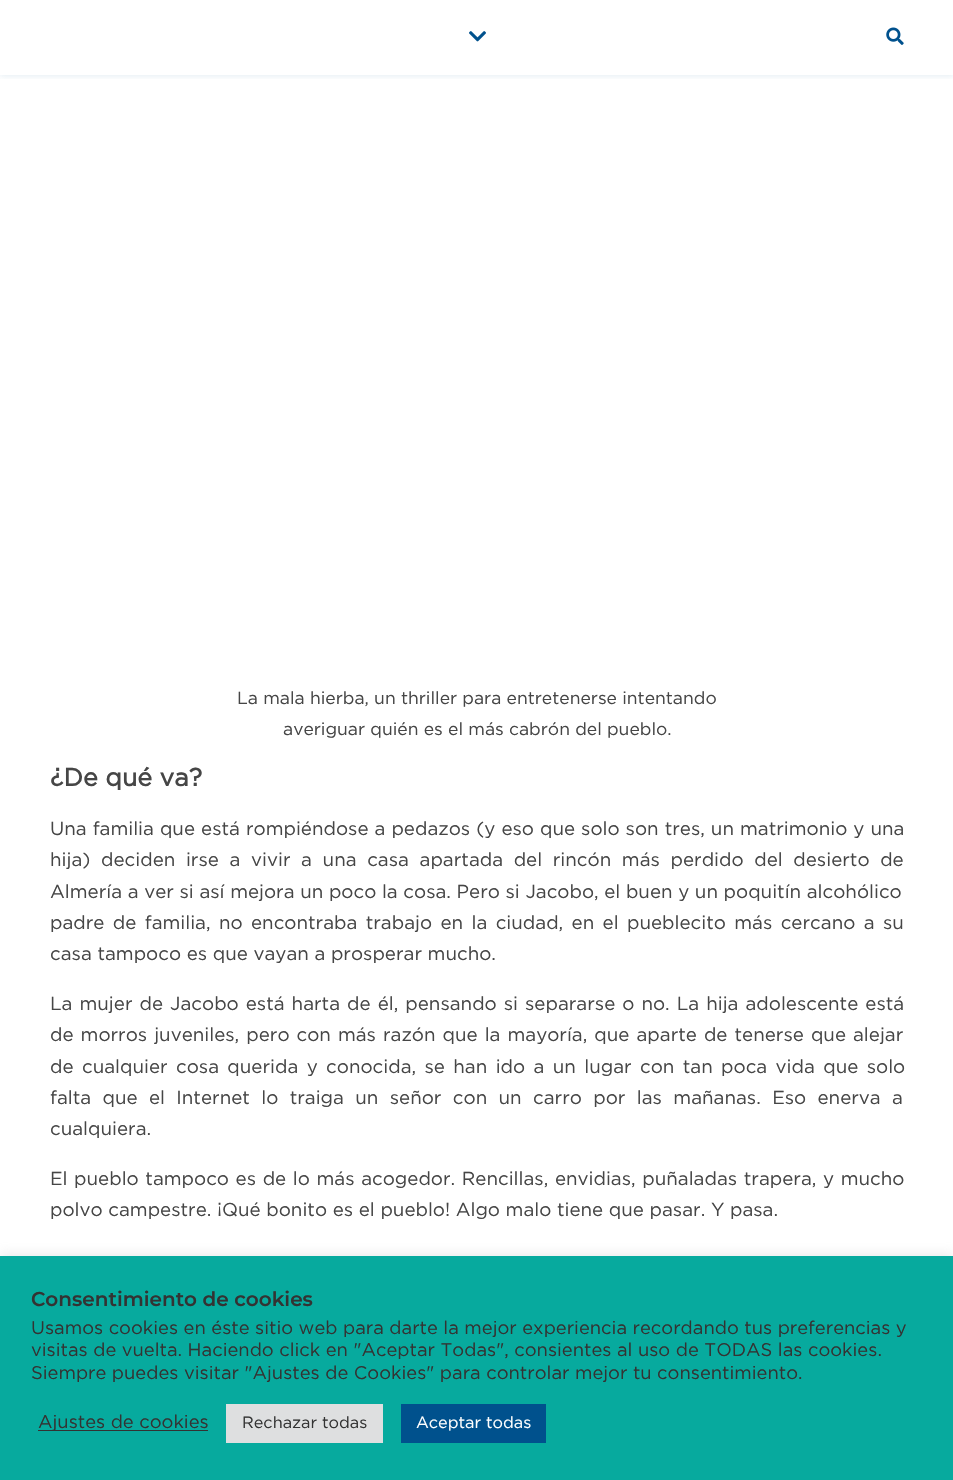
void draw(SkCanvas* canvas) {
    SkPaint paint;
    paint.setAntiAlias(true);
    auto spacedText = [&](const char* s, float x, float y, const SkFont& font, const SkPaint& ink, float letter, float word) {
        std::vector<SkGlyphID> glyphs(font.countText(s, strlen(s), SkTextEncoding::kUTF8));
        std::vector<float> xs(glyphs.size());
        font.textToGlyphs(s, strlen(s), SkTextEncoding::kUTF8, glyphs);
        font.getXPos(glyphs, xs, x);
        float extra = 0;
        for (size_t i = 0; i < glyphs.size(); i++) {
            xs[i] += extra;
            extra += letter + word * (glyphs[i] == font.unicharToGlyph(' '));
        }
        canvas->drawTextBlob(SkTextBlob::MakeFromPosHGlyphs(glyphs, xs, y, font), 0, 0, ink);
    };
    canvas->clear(0xFFFFFFFF);
    canvas->save();
    canvas->clipRect(SkRect::MakeXYWH(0, 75, 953, 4));
    paint.setColor(0x1A00518D);
    paint.setMaskFilter(SkMaskFilter::MakeBlur(kNormal_SkBlurStyle, 3));
    canvas->drawRect(SkRect::MakeXYWH(0, 1, 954, 75), paint);
    paint.setMaskFilter(nullptr);
    canvas->restore();
    canvas->drawImageRect(SkImages::DeferredFromEncodedData(SkData::MakeFromFileName("img1.png")), SkRect::MakeXYWH(469, 31, 17, 11), SkSamplingOptions());
    canvas->drawImageRect(SkImages::DeferredFromEncodedData(SkData::MakeFromFileName("img2.png")), SkRect::MakeXYWH(886, 27, 18, 18), SkSamplingOptions());
    SkFont font1(fontMgr->matchFamilyStyle("Gotham", SkFontStyle::Normal()), 17.5f);
    font1.setSubpixel(true);
    paint.setColor(0xFF464646);
    canvas->drawString("La mala hierba, un thriller para entretenerse intentando", 237, 704, font1, paint);
    canvas->drawString("averiguar quién es el más cabrón del pueblo.", 283, 735, font1, paint);
    SkFont font2(fontMgr->matchFamilyStyle("Gotham", SkFontStyle::Bold()), 25);
    font2.setSubpixel(true);
    canvas->drawString("¿De qué va?", 50, 786, font2, paint);
    SkFont font3(fontMgr->matchFamilyStyle("Gotham", SkFontStyle::Normal()), 18.75f);
    font3.setSubpixel(true);
    spacedText("Una familia que está rompiéndose a pedazos (y eso que solo son tres, un matrimonio y una", 50, 835, font3, paint, 0, 0.4f);
    spacedText("hija) deciden irse a vivir a una casa apartada del rincón más perdido del desierto de", 50, 866, font3, paint, 0, 5);
    canvas->drawString("Almería a ver si así mejora un poco la cosa. Pero si Jacobo, el buen y un poquitín alcohólico", 50, 898, font3, paint);
    spacedText("padre de familia, no encontraba trabajo en la ciudad, en el pueblecito más cercano a su", 50, 929, font3, paint, 0, 2.75f);
    canvas->drawString("casa tampoco es que vayan a prosperar mucho.", 50, 960, font3, paint);
    spacedText("La mujer de Jacobo está harta de él, pensando si separarse o no. La hija adolescente está", 50, 1010, font3, paint, 0, 1.4f);
    spacedText("de morros juveniles, pero con más razón que la mayoría, que aparte de tenerse que alejar", 50, 1041, font3, paint, 0, 1.4f);
    spacedText("de cualquier cosa querida y conocida, se han ido a un lugar con tan poca vida que solo", 50, 1073, font3, paint, 0, 2.75f);
    spacedText("falta que el Internet lo traiga un señor con un carro por las mañanas. Eso enerva a", 50, 1104, font3, paint, 0, 5.75f);
    canvas->drawString("cualquiera.", 50, 1135, font3, paint);
    spacedText("El pueblo tampoco es de lo más acogedor. Rencillas, envidias, puñaladas trapera, y mucho", 50, 1185, font3, paint, 0, 1);
    canvas->drawString("polvo campestre. ¡Qué bonito es el pueblo! Algo malo tiene que pasar. Y pasa.", 50, 1216, font3, paint);
    paint.setColor(0x4DACABAB);
    paint.setMaskFilter(SkMaskFilter::MakeBlur(kNormal_SkBlurStyle, 6));
    canvas->drawRect(SkRect::MakeXYWH(0, 1255, 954, 224), paint);
    paint.setMaskFilter(nullptr);
    paint.setColor(0xFF07AA9E);
    canvas->drawRect(SkRect::MakeXYWH(0, 1256, 953, 224), paint);
    SkFont font4(fontMgr->matchFamilyStyle("Montserrat", SkFontStyle(600, SkFontStyle::kNormal_Width, SkFontStyle::kUpright_Slant)), 20);
    font4.setSubpixel(true);
    paint.setColor(0xFF333333);
    canvas->drawString("Consentimiento de cookies", 31, 1306, font4, paint);
    SkFont font5(fontMgr->matchFamilyStyle("Gotham", SkFontStyle::Normal()), 18.35f);
    font5.setSubpixel(true);
    canvas->drawString("Usamos cookies en éste sitio web para darte la mejor experiencia recordando tus preferencias y", 31, 1334, font5, paint);
    canvas->drawString("visitas de vuelta. Haciendo click en \"Aceptar Todas\", consientes al uso de TODAS las cookies.", 31, 1356, font5, paint);
    canvas->drawString("Siempre puedes visitar \"Ajustes de Cookies\" para controlar mejor tu consentimiento.", 31, 1379, font5, paint);
    canvas->drawRect(SkRect::MakeXYWH(38, 1430, 170, 1), paint);
    canvas->drawString("Ajustes de cookies", 38, 1428, font5, paint);
    paint.setColor(0xFFDEDFE0);
    canvas->drawRect(SkRect::MakeXYWH(226, 1404, 157, 39), paint);
    SkFont font6(fontMgr->matchFamilyStyle("Gotham", SkFontStyle::Normal()), 16.25f);
    font6.setSubpixel(true);
    paint.setColor(0xFF333333);
    canvas->drawString("Rechazar todas", 242, 1428, font6, paint);
    paint.setColor(0xFF00518D);
    canvas->drawRect(SkRect::MakeXYWH(401, 1404, 145, 39), paint);
    paint.setColor(0xFFFFFFFF);
    canvas->drawString("Aceptar todas", 416, 1428, font6, paint);
}
